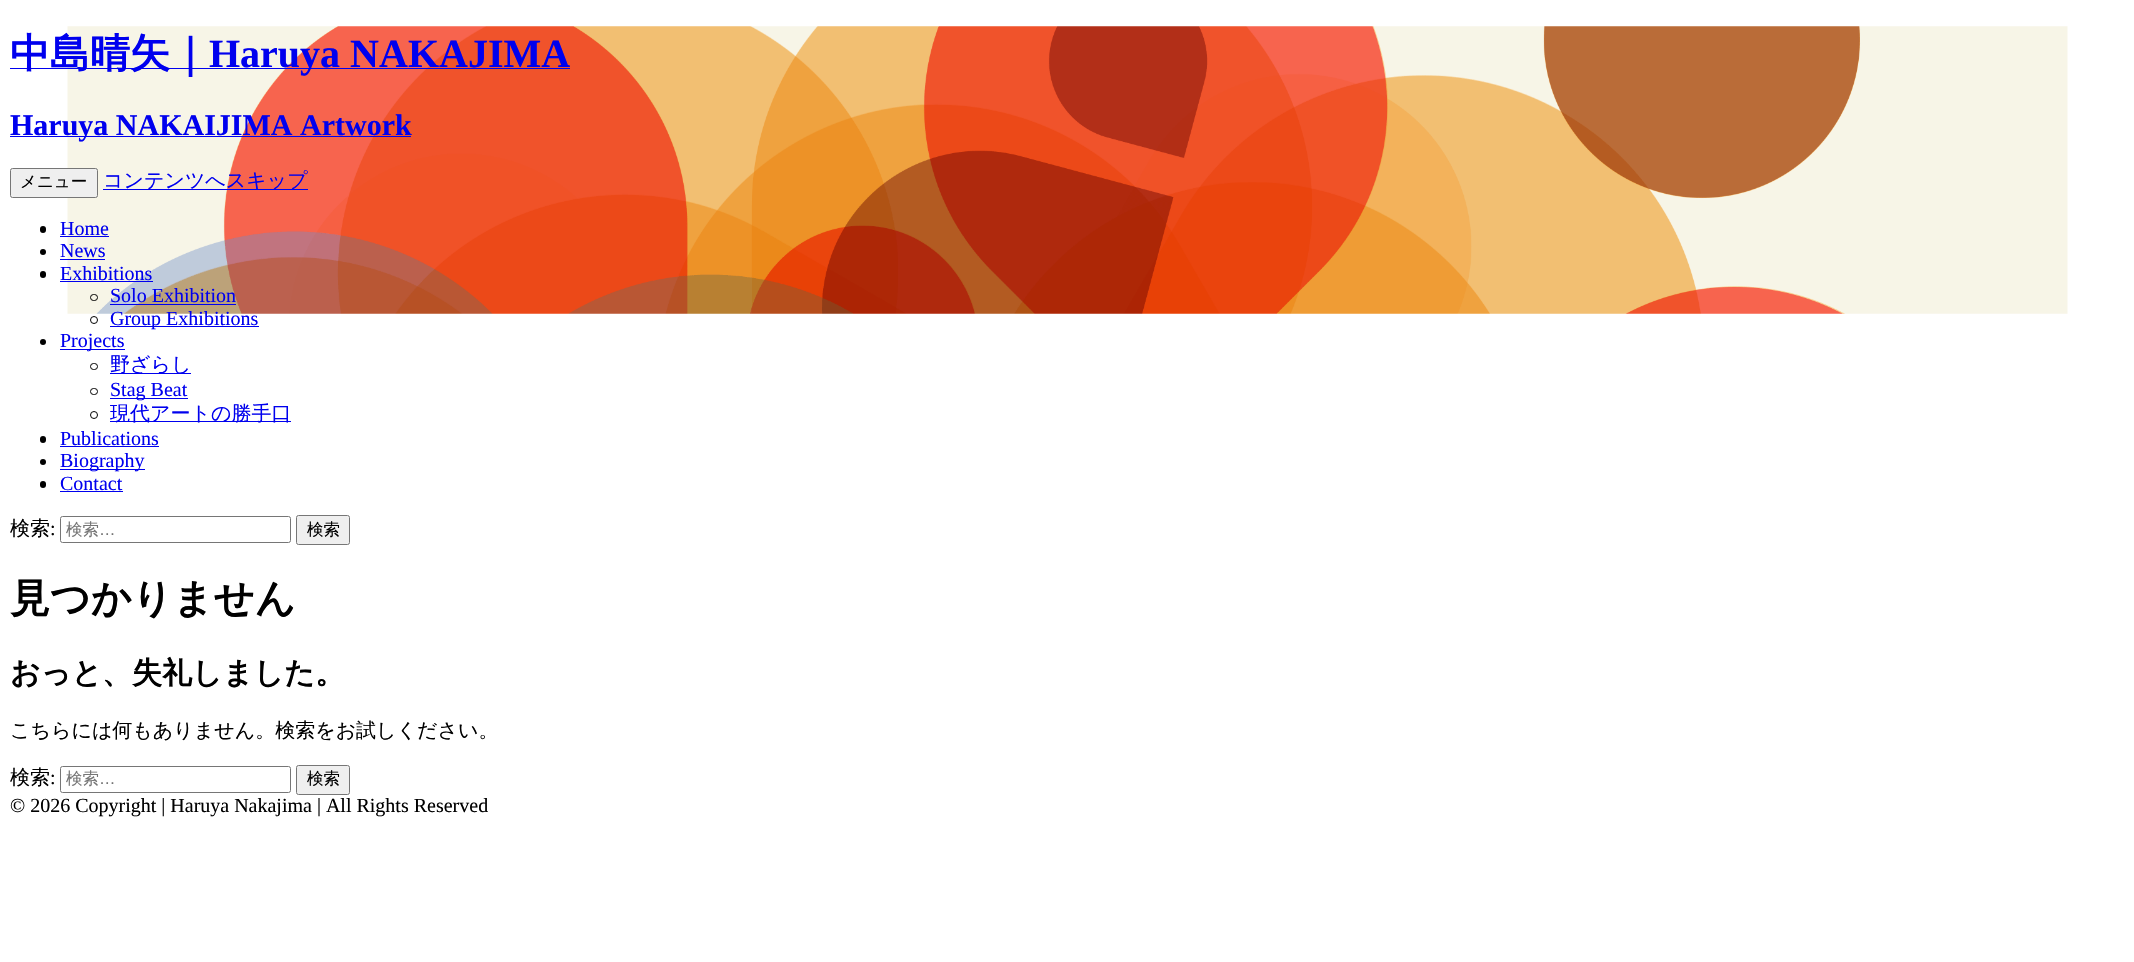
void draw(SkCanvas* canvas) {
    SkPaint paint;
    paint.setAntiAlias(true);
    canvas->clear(0xFFFFFFFF);
    canvas->drawImageRect(SkImages::DeferredFromEncodedData(SkData::MakeFromFileName("img1.png")), SkRect::MakeXYWH(67, 26, 2001, 288), SkSamplingOptions());
    paint.setColor(0xFF0000EE);
    canvas->drawRect(SkRect::MakeXYWH(10, 68, 560, 1), paint);
    SkFont font1(fontMgr->matchFamilyStyle("WenQuanYi Zen Hei", SkFontStyle::Bold()), 40);
    font1.setSubpixel(true);
    canvas->drawString("中島晴矢｜", 10, 67, font1, paint);
    SkFont font2(fontMgr->matchFamilyStyle("Liberation Serif", SkFontStyle::Bold()), 40);
    font2.setSubpixel(true);
    canvas->drawString("Haruya NAKAJIMA", 209, 67, font2, paint);
    canvas->drawRect(SkRect::MakeXYWH(10, 136, 401, 1), paint);
    SkFont font3(fontMgr->matchFamilyStyle("Liberation Serif", SkFontStyle::Bold()), 30);
    font3.setSubpixel(true);
    canvas->drawString("Haruya NAKAIJIMA Artwork", 10, 135, font3, paint);
    paint.setColor(0xFFEFEFEF);
    canvas->drawRoundRect(SkRect::MakeXYWH(10.5f, 168.5f, 87, 29), 2, 2, paint);
    paint.setStyle(SkPaint::kStroke_Style);
    paint.setStrokeWidth(1);
    paint.setColor(0xFF767676);
    canvas->drawRoundRect(SkRect::MakeXYWH(10.5f, 168.5f, 87, 29), 2, 2, paint);
    SkFont font4(fontMgr->matchFamilyStyle("WenQuanYi Zen Hei", SkFontStyle(500, SkFontStyle::kNormal_Width, SkFontStyle::kUpright_Slant)), 16.5f);
    font4.setSubpixel(true);
    paint.setStyle(SkPaint::kFill_Style);
    paint.setColor(0xFF000000);
    canvas->drawString("メニュー", 20, 187, font4, paint);
    paint.setColor(0xFF0000EE);
    canvas->drawRect(SkRect::MakeXYWH(103, 189, 205, 1), paint);
    SkFont font5(fontMgr->matchFamilyStyle("WenQuanYi Zen Hei", SkFontStyle(500, SkFontStyle::kNormal_Width, SkFontStyle::kUpright_Slant)), 20);
    font5.setSubpixel(true);
    canvas->drawString("コンテンツへスキップ", 103, 187, font5, paint);
    paint.setColor(0xFF000000);
    canvas->drawRoundRect(SkRect::MakeXYWH(40, 226, 6, 7), 3, 3, paint);
    SkFont font6(fontMgr->matchFamilyStyle("Liberation Serif", SkFontStyle::Normal()), 20);
    font6.setSubpixel(true);
    paint.setColor(0xFF0000EE);
    canvas->drawString("Home", 60, 235, font6, paint);
    canvas->drawRect(SkRect::MakeXYWH(60, 236, 49, 1), paint);
    paint.setColor(0xFF000000);
    canvas->drawCircle(43, 252, 3, paint);
    paint.setColor(0xFF0000EE);
    canvas->drawString("News", 60, 257, font6, paint);
    canvas->drawRect(SkRect::MakeXYWH(60, 259, 45, 1), paint);
    paint.setColor(0xFF000000);
    canvas->drawRoundRect(SkRect::MakeXYWH(40, 271, 6, 7), 3, 3, paint);
    paint.setColor(0xFF0000EE);
    canvas->drawString("Exhibitions", 60, 280, font6, paint);
    canvas->drawRect(SkRect::MakeXYWH(60, 281, 93, 1), paint);
    paint.setStyle(SkPaint::kStroke_Style);
    paint.setColor(0xFF000000);
    canvas->drawRoundRect(SkRect::MakeXYWH(90.5f, 294.5f, 7, 6), 3, 3, paint);
    paint.setStyle(SkPaint::kFill_Style);
    paint.setColor(0xFF0000EE);
    canvas->drawString("Solo Exhibition", 110, 302, font6, paint);
    canvas->drawRect(SkRect::MakeXYWH(110, 304, 126, 1), paint);
    paint.setStyle(SkPaint::kStroke_Style);
    paint.setColor(0xFF000000);
    canvas->drawCircle(94, 320, 3.5f, paint);
    paint.setStyle(SkPaint::kFill_Style);
    paint.setColor(0xFF0000EE);
    canvas->drawRect(SkRect::MakeXYWH(110, 326, 149, 1), paint);
    canvas->drawString("Group Exhibitions", 110, 325, font6, paint);
    paint.setColor(0xFF000000);
    canvas->drawCircle(43, 342, 3, paint);
    paint.setColor(0xFF0000EE);
    canvas->drawRect(SkRect::MakeXYWH(60, 349, 65, 1), paint);
    canvas->drawString("Projects", 60, 347, font6, paint);
    paint.setStyle(SkPaint::kStroke_Style);
    paint.setColor(0xFF000000);
    canvas->drawRoundRect(SkRect::MakeXYWH(90.5f, 363.5f, 7, 6), 3, 3, paint);
    paint.setStyle(SkPaint::kFill_Style);
    paint.setColor(0xFF0000EE);
    canvas->drawRect(SkRect::MakeXYWH(110, 373, 81, 1), paint);
    canvas->drawString("野ざらし", 110, 371, font5, paint);
    paint.setStyle(SkPaint::kStroke_Style);
    paint.setColor(0xFF000000);
    canvas->drawRoundRect(SkRect::MakeXYWH(90.5f, 388.5f, 7, 6), 3, 3, paint);
    paint.setStyle(SkPaint::kFill_Style);
    paint.setColor(0xFF0000EE);
    canvas->drawRect(SkRect::MakeXYWH(110, 398, 78, 1), paint);
    canvas->drawString("Stag Beat", 110, 396, font6, paint);
    paint.setStyle(SkPaint::kStroke_Style);
    paint.setColor(0xFF000000);
    canvas->drawCircle(94, 415, 3.5f, paint);
    paint.setStyle(SkPaint::kFill_Style);
    paint.setColor(0xFF0000EE);
    canvas->drawRect(SkRect::MakeXYWH(110, 421, 181, 1), paint);
    canvas->drawString("現代アートの勝手口", 110, 420, font5, paint);
    paint.setColor(0xFF000000);
    canvas->drawRoundRect(SkRect::MakeXYWH(40, 436, 6, 7), 3, 3, paint);
    paint.setColor(0xFF0000EE);
    canvas->drawString("Publications", 60, 445, font6, paint);
    canvas->drawRect(SkRect::MakeXYWH(60, 446, 99, 1), paint);
    paint.setColor(0xFF000000);
    canvas->drawCircle(43, 462, 3, paint);
    paint.setColor(0xFF0000EE);
    canvas->drawRect(SkRect::MakeXYWH(60, 469, 85, 1), paint);
    canvas->drawString("Biography", 60, 467, font6, paint);
    paint.setColor(0xFF000000);
    canvas->drawRoundRect(SkRect::MakeXYWH(40, 481, 6, 7), 3, 3, paint);
    paint.setColor(0xFF0000EE);
    canvas->drawString("Contact", 60, 490, font6, paint);
    canvas->drawRect(SkRect::MakeXYWH(60, 491, 63, 1), paint);
    paint.setColor(0xFF000000);
    canvas->drawString("検索", 10, 535, font5, paint);
    canvas->drawString(":", 50, 535, font6, paint);
    paint.setStyle(SkPaint::kStroke_Style);
    paint.setColor(0xFF767676);
    canvas->drawRoundRect(SkRect::MakeXYWH(60.5f, 516.5f, 230, 26), 2, 2, paint);
    paint.setStyle(SkPaint::kFill_Style);
    paint.setColor(0xFF757575);
    canvas->drawString("検索", 66, 535, font4, paint);
    SkFont font7(fontMgr->matchFamilyStyle("Liberation Sans", SkFontStyle::Normal()), 16.5f);
    font7.setSubpixel(true);
    canvas->drawString("…", 99, 535, font7, paint);
    paint.setColor(0xFFEFEFEF);
    canvas->drawRoundRect(SkRect::MakeXYWH(296.5f, 515.5f, 53, 29), 2, 2, paint);
    paint.setStyle(SkPaint::kStroke_Style);
    paint.setColor(0xFF767676);
    canvas->drawRoundRect(SkRect::MakeXYWH(296.5f, 515.5f, 53, 29), 2, 2, paint);
    paint.setStyle(SkPaint::kFill_Style);
    paint.setColor(0xFF000000);
    canvas->drawString("検索", 307, 535, font4, paint);
    canvas->drawString("見つかりません", 10, 612, font1, paint);
    SkFont font8(fontMgr->matchFamilyStyle("WenQuanYi Zen Hei", SkFontStyle::Bold()), 30);
    font8.setSubpixel(true);
    canvas->drawString("おっと、失礼しました。", 10, 683, font8, paint);
    canvas->drawString("こちらには何もありません。検索をお試しください。", 10, 737, font5, paint);
    canvas->drawString("検索", 10, 784, font5, paint);
    canvas->drawString(":", 50, 784, font6, paint);
    paint.setStyle(SkPaint::kStroke_Style);
    paint.setColor(0xFF767676);
    canvas->drawRoundRect(SkRect::MakeXYWH(60.5f, 766.5f, 230, 26), 2, 2, paint);
    paint.setStyle(SkPaint::kFill_Style);
    paint.setColor(0xFF757575);
    canvas->drawString("検索", 66, 784, font4, paint);
    canvas->drawString("…", 99, 784, font7, paint);
    paint.setColor(0xFFEFEFEF);
    canvas->drawRoundRect(SkRect::MakeXYWH(296.5f, 765.5f, 53, 29), 2, 2, paint);
    paint.setStyle(SkPaint::kStroke_Style);
    paint.setColor(0xFF767676);
    canvas->drawRoundRect(SkRect::MakeXYWH(296.5f, 765.5f, 53, 29), 2, 2, paint);
    paint.setStyle(SkPaint::kFill_Style);
    paint.setColor(0xFF000000);
    canvas->drawString("検索", 307, 784, font4, paint);
    canvas->drawString("© 2026 Copyright | Haruya Nakajima | All Rights Reserved", 10, 812, font6, paint);
}
